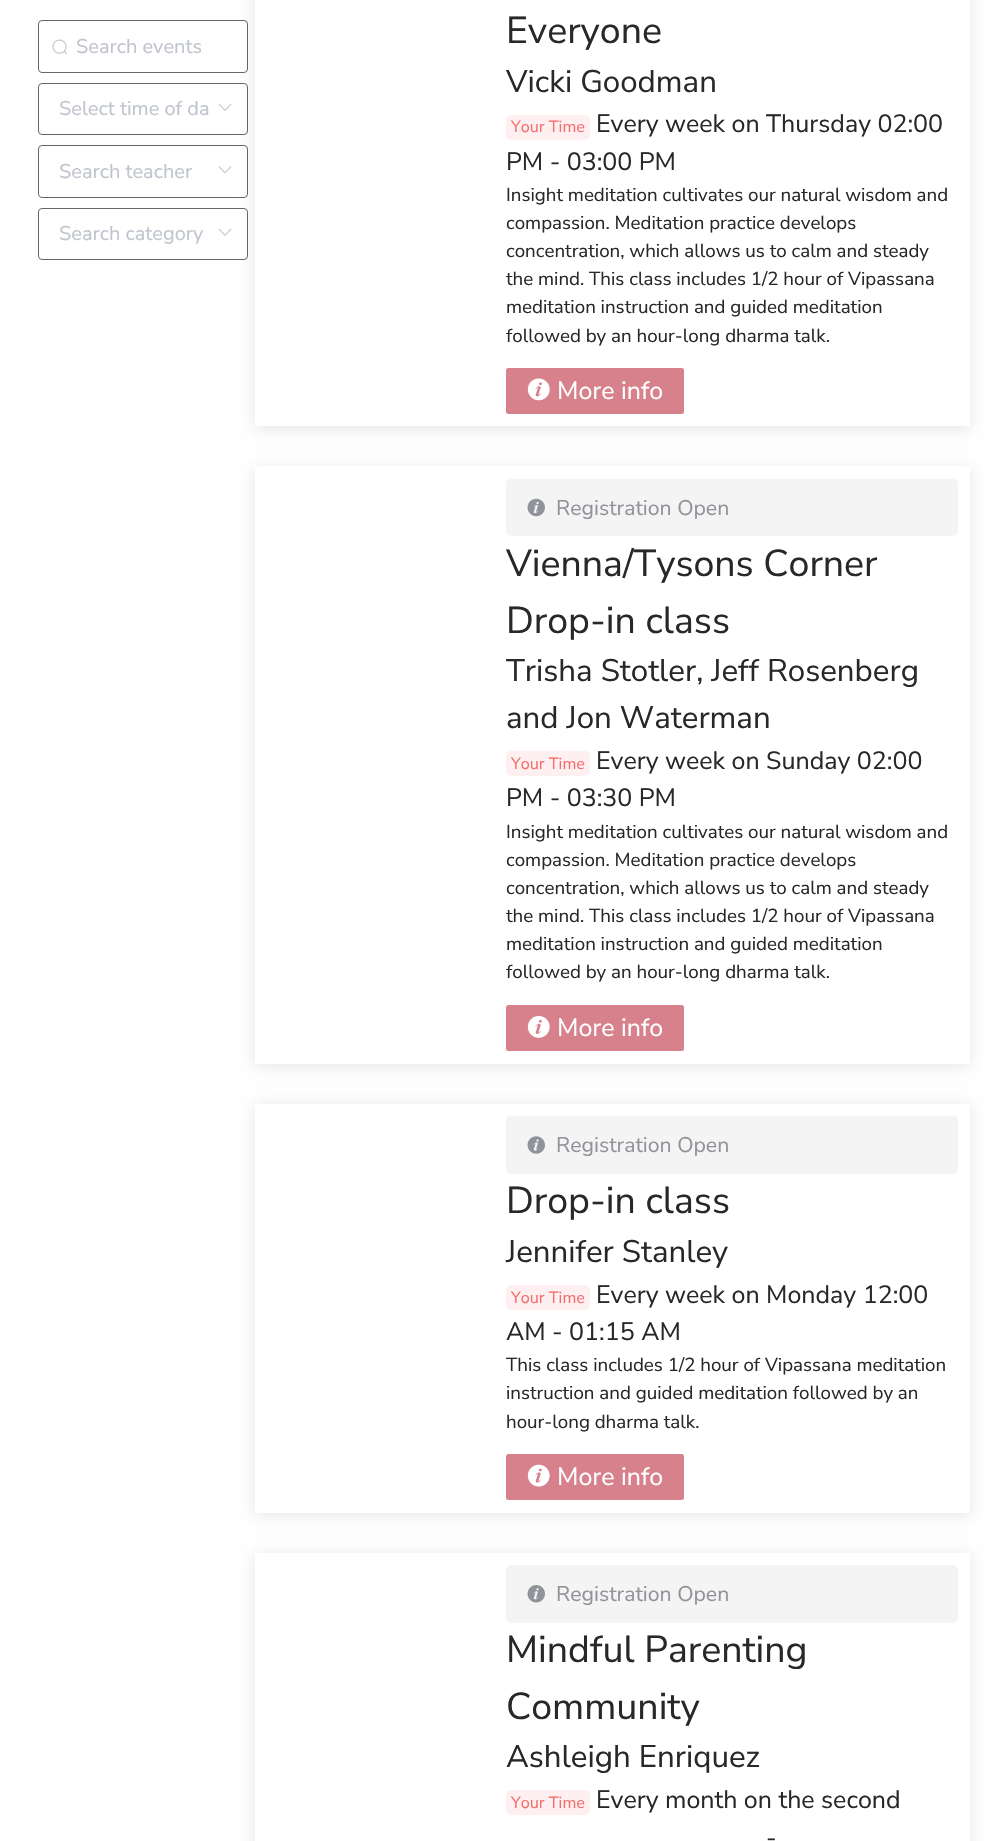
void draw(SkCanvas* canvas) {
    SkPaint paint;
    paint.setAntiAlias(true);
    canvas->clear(0xFFFFFFFF);
    paint.setStyle(SkPaint::kStroke_Style);
    paint.setStrokeWidth(1);
    paint.setColor(0xFF666666);
    canvas->drawRoundRect(SkRect::MakeXYWH(38.5f, 20.5f, 209, 52), 3.5f, 3.5f, paint);
    canvas->drawImageRect(SkImages::DeferredFromEncodedData(SkData::MakeFromFileName("img1.png")), SkRect::MakeXYWH(52, 39, 15, 16), SkSamplingOptions());
    SkFont font1(fontMgr->matchFamilyStyle("Nunito Sans", SkFontStyle::Normal()), 20);
    font1.setSubpixel(true);
    paint.setStyle(SkPaint::kFill_Style);
    paint.setColor(0xFFC0C4CC);
    canvas->drawString("Search events", 76, 53, font1, paint);
    paint.setStyle(SkPaint::kStroke_Style);
    paint.setColor(0xFF666666);
    canvas->drawRoundRect(SkRect::MakeXYWH(38.5f, 83.5f, 209, 51), 3.5f, 3.5f, paint);
    paint.setStyle(SkPaint::kFill_Style);
    paint.setColor(0xFFC0C4CC);
    canvas->drawString("Select time of da", 59, 115, font1, paint);
    canvas->drawImageRect(SkImages::DeferredFromEncodedData(SkData::MakeFromFileName("img2.png")), SkRect::MakeXYWH(218, 103, 14, 8), SkSamplingOptions());
    paint.setStyle(SkPaint::kStroke_Style);
    paint.setColor(0xFF666666);
    canvas->drawRoundRect(SkRect::MakeXYWH(38.5f, 145.5f, 209, 52), 3.5f, 3.5f, paint);
    paint.setStyle(SkPaint::kFill_Style);
    paint.setColor(0xFFC0C4CC);
    canvas->drawString("Search teacher", 59, 178, font1, paint);
    canvas->drawImageRect(SkImages::DeferredFromEncodedData(SkData::MakeFromFileName("img3.png")), SkRect::MakeXYWH(218, 166, 14, 8), SkSamplingOptions());
    paint.setStyle(SkPaint::kStroke_Style);
    paint.setColor(0xFF666666);
    canvas->drawRoundRect(SkRect::MakeXYWH(38.5f, 208.5f, 209, 51), 3.5f, 3.5f, paint);
    paint.setStyle(SkPaint::kFill_Style);
    paint.setColor(0xFFC0C4CC);
    canvas->drawString("Search category", 59, 240, font1, paint);
    canvas->drawImageRect(SkImages::DeferredFromEncodedData(SkData::MakeFromFileName("img2.png")), SkRect::MakeXYWH(218, 228, 14, 8), SkSamplingOptions());
    canvas->save();
    canvas->clipPath(SkPathBuilder(SkPathFillType::kEvenOdd).moveTo(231, 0).lineTo(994, 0).lineTo(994, 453).lineTo(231, 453).close().moveTo(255, -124).lineTo(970, -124).lineTo(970, 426).lineTo(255, 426).close().detach(), true);
    paint.setColor(0x1A000000);
    paint.setMaskFilter(SkMaskFilter::MakeBlur(kNormal_SkBlurStyle, 7.5f));
    canvas->drawRect(SkRect::MakeXYWH(255, -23, 715, 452), paint);
    paint.setMaskFilter(nullptr);
    canvas->restore();
    SkFont font2(fontMgr->matchFamilyStyle("Nunito Sans", SkFontStyle::Normal()), 37.5f);
    font2.setSubpixel(true);
    paint.setColor(0xFF282828);
    canvas->drawString("Everyone", 506, 43, font2, paint);
    SkFont font3(fontMgr->matchFamilyStyle("Nunito Sans", SkFontStyle::Normal()), 31.25f);
    font3.setSubpixel(true);
    canvas->drawString("Vicki Goodman", 506, 92, font3, paint);
    paint.setColor(0xFFFEF0F0);
    canvas->drawRoundRect(SkRect::MakeXYWH(506, 115, 84, 25), 5, 5, paint);
    SkFont font4(fontMgr->matchFamilyStyle("Nunito Sans", SkFontStyle::Normal()), 16.25f);
    font4.setSubpixel(true);
    paint.setColor(0xFFF56C6C);
    canvas->drawString("Your Time", 511, 132, font4, paint);
    SkFont font5(fontMgr->matchFamilyStyle("Nunito Sans", SkFontStyle::Normal()), 25);
    font5.setSubpixel(true);
    paint.setColor(0xFF282828);
    canvas->drawString("Every week on Thursday 02:00", 596, 132, font5, paint);
    canvas->drawString("PM - 03:00 PM", 506, 170, font5, paint);
    SkFont font6(fontMgr->matchFamilyStyle("Nunito Sans", SkFontStyle::Normal()), 18.75f);
    font6.setSubpixel(true);
    canvas->drawString("Insight meditation cultivates our natural wisdom and", 506, 201, font6, paint);
    canvas->drawString("compassion. Meditation practice develops", 506, 229, font6, paint);
    canvas->drawString("concentration, which allows us to calm and steady", 506, 257, font6, paint);
    canvas->drawString("the mind. This class includes 1/2 hour of Vipassana", 506, 285, font6, paint);
    canvas->drawString("meditation instruction and guided meditation", 506, 313, font6, paint);
    canvas->drawString("followed by an hour-long dharma talk.", 506, 342, font6, paint);
    paint.setColor(0xFFD7818C);
    canvas->drawRoundRect(SkRect::MakeXYWH(506, 368, 178, 46), 2.5f, 2.5f, paint);
    canvas->drawImageRect(SkImages::DeferredFromEncodedData(SkData::MakeFromFileName("img4.png")), SkRect::MakeXYWH(527, 378, 23, 23), SkSamplingOptions());
    paint.setColor(0xFFFFFFFF);
    canvas->drawString("More info", 557, 399, font5, paint);
    canvas->save();
    canvas->clipPath(SkPathBuilder(SkPathFillType::kEvenOdd).moveTo(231, 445).lineTo(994, 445).lineTo(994, 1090).lineTo(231, 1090).close().moveTo(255, 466).lineTo(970, 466).lineTo(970, 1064).lineTo(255, 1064).close().detach(), true);
    paint.setColor(0x1A000000);
    paint.setMaskFilter(SkMaskFilter::MakeBlur(kNormal_SkBlurStyle, 7.5f));
    canvas->drawRect(SkRect::MakeXYWH(255, 469, 715, 597), paint);
    paint.setMaskFilter(nullptr);
    canvas->restore();
    paint.setColor(0xFFF4F4F5);
    canvas->drawRoundRect(SkRect::MakeXYWH(506, 479, 452, 57), 5, 5, paint);
    canvas->drawImageRect(SkImages::DeferredFromEncodedData(SkData::MakeFromFileName("img5.png")), SkRect::MakeXYWH(527, 498, 18, 19), SkSamplingOptions());
    SkFont font7(fontMgr->matchFamilyStyle("Nunito Sans", SkFontStyle::Normal()), 21.25f);
    font7.setSubpixel(true);
    paint.setColor(0xFF909399);
    canvas->drawString("Registration Open", 556, 515, font7, paint);
    paint.setColor(0xFF282828);
    canvas->drawString("Vienna/Tysons Corner", 506, 576, font2, paint);
    canvas->drawString("Drop-in class", 506, 633, font2, paint);
    canvas->drawString("Trisha Stotler, Jeff Rosenberg", 506, 681, font3, paint);
    canvas->drawString("and Jon Waterman", 506, 728, font3, paint);
    paint.setColor(0xFFFEF0F0);
    canvas->drawRoundRect(SkRect::MakeXYWH(506, 751, 84, 25), 5, 5, paint);
    paint.setColor(0xFFF56C6C);
    canvas->drawString("Your Time", 511, 769, font4, paint);
    paint.setColor(0xFF282828);
    canvas->drawString("Every week on Sunday 02:00", 596, 769, font5, paint);
    canvas->drawString("PM - 03:30 PM", 506, 806, font5, paint);
    canvas->drawString("Insight meditation cultivates our natural wisdom and", 506, 838, font6, paint);
    canvas->drawString("compassion. Meditation practice develops", 506, 866, font6, paint);
    canvas->drawString("concentration, which allows us to calm and steady", 506, 894, font6, paint);
    canvas->drawString("the mind. This class includes 1/2 hour of Vipassana", 506, 922, font6, paint);
    canvas->drawString("meditation instruction and guided meditation", 506, 950, font6, paint);
    canvas->drawString("followed by an hour-long dharma talk.", 506, 978, font6, paint);
    paint.setColor(0xFFD7818C);
    canvas->drawRoundRect(SkRect::MakeXYWH(506, 1005, 178, 46), 2.5f, 2.5f, paint);
    canvas->drawImageRect(SkImages::DeferredFromEncodedData(SkData::MakeFromFileName("img6.png")), SkRect::MakeXYWH(527, 1015, 23, 23), SkSamplingOptions());
    paint.setColor(0xFFFFFFFF);
    canvas->drawString("More info", 557, 1036, font5, paint);
    canvas->save();
    canvas->clipPath(SkPathBuilder(SkPathFillType::kEvenOdd).moveTo(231, 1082).lineTo(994, 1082).lineTo(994, 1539).lineTo(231, 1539).close().moveTo(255, 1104).lineTo(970, 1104).lineTo(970, 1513).lineTo(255, 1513).close().detach(), true);
    paint.setColor(0x1A000000);
    paint.setMaskFilter(SkMaskFilter::MakeBlur(kNormal_SkBlurStyle, 7.5f));
    canvas->drawRect(SkRect::MakeXYWH(255, 1106, 715, 409), paint);
    paint.setMaskFilter(nullptr);
    canvas->restore();
    paint.setColor(0xFFF4F4F5);
    canvas->drawRoundRect(SkRect::MakeXYWH(506, 1116, 452, 58), 5, 5, paint);
    canvas->drawImageRect(SkImages::DeferredFromEncodedData(SkData::MakeFromFileName("img7.png")), SkRect::MakeXYWH(527, 1136, 18, 18), SkSamplingOptions());
    paint.setColor(0xFF909399);
    canvas->drawString("Registration Open", 556, 1152, font7, paint);
    paint.setColor(0xFF282828);
    canvas->drawString("Drop-in class", 506, 1213, font2, paint);
    canvas->drawString("Jennifer Stanley", 506, 1262, font3, paint);
    paint.setColor(0xFFFEF0F0);
    canvas->drawRoundRect(SkRect::MakeXYWH(506, 1285, 84, 25), 5, 5, paint);
    paint.setColor(0xFFF56C6C);
    canvas->drawString("Your Time", 511, 1303, font4, paint);
    paint.setColor(0xFF282828);
    canvas->drawString("Every week on Monday 12:00", 596, 1303, font5, paint);
    canvas->drawString("AM - 01:15 AM", 506, 1340, font5, paint);
    canvas->drawString("This class includes 1/2 hour of Vipassana meditation", 506, 1371, font6, paint);
    canvas->drawString("instruction and guided meditation followed by an", 506, 1399, font6, paint);
    canvas->drawString("hour-long dharma talk.", 506, 1428, font6, paint);
    paint.setColor(0xFFD7818C);
    canvas->drawRoundRect(SkRect::MakeXYWH(506, 1454, 178, 46), 2.5f, 2.5f, paint);
    canvas->drawImageRect(SkImages::DeferredFromEncodedData(SkData::MakeFromFileName("img8.png")), SkRect::MakeXYWH(527, 1464, 23, 23), SkSamplingOptions());
    paint.setColor(0xFFFFFFFF);
    canvas->drawString("More info", 557, 1485, font5, paint);
    canvas->save();
    canvas->clipPath(SkPathBuilder(SkPathFillType::kEvenOdd).moveTo(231, 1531).lineTo(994, 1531).lineTo(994, 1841).lineTo(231, 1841).close().moveTo(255, 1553).lineTo(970, 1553).lineTo(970, 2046).lineTo(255, 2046).close().detach(), true);
    paint.setColor(0x1A000000);
    paint.setMaskFilter(SkMaskFilter::MakeBlur(kNormal_SkBlurStyle, 7.5f));
    canvas->drawRect(SkRect::MakeXYWH(255, 1555, 715, 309), paint);
    paint.setMaskFilter(nullptr);
    canvas->restore();
    paint.setColor(0xFFF4F4F5);
    canvas->drawRoundRect(SkRect::MakeXYWH(506, 1565, 452, 58), 5, 5, paint);
    canvas->drawImageRect(SkImages::DeferredFromEncodedData(SkData::MakeFromFileName("img9.png")), SkRect::MakeXYWH(527, 1585, 18, 18), SkSamplingOptions());
    paint.setColor(0xFF909399);
    canvas->drawString("Registration Open", 556, 1601, font7, paint);
    paint.setColor(0xFF282828);
    canvas->drawString("Mindful Parenting", 506, 1662, font2, paint);
    canvas->drawString("Community", 506, 1719, font2, paint);
    canvas->drawString("Ashleigh Enriquez", 506, 1767, font3, paint);
    paint.setColor(0xFFFEF0F0);
    canvas->drawRoundRect(SkRect::MakeXYWH(506, 1790, 84, 25), 5, 5, paint);
    paint.setColor(0xFFF56C6C);
    canvas->drawString("Your Time", 511, 1808, font4, paint);
    paint.setColor(0xFF282828);
    canvas->drawString("Every month on the second", 596, 1808, font5, paint);
    canvas->drawString("-", 766, 1846, font5, paint);
}
